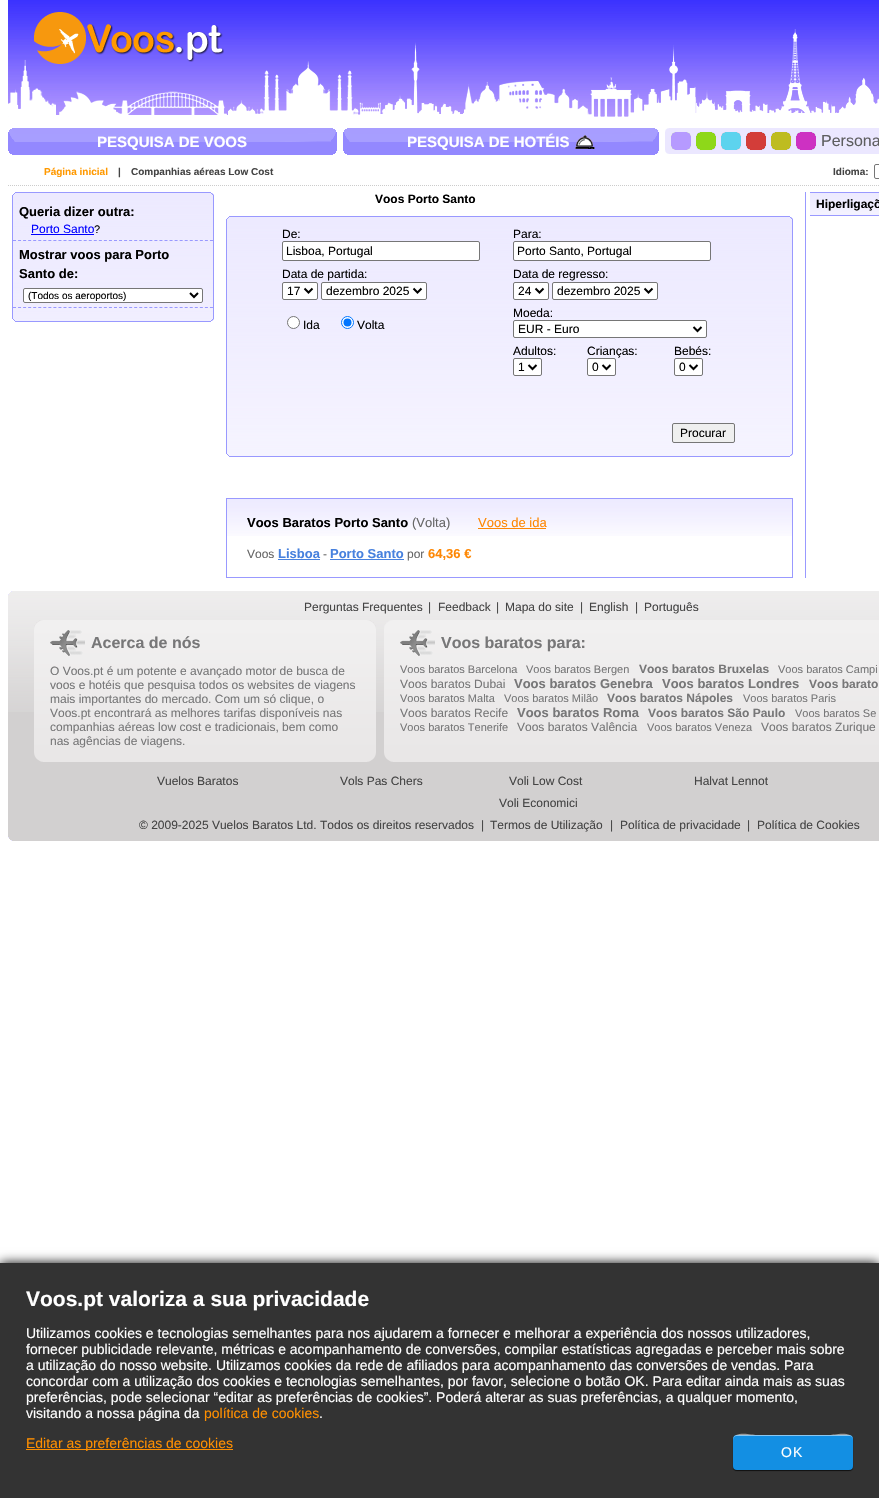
void draw(SkCanvas* canvas) {
    SkPaint paint;
    paint.setAntiAlias(true);
    auto spacedText = [&](const char* s, float x, float y, const SkFont& font, const SkPaint& ink, float letter, float word) {
        std::vector<SkGlyphID> glyphs(font.countText(s, strlen(s), SkTextEncoding::kUTF8));
        std::vector<float> xs(glyphs.size());
        font.textToGlyphs(s, strlen(s), SkTextEncoding::kUTF8, glyphs);
        font.getXPos(glyphs, xs, x);
        float extra = 0;
        for (size_t i = 0; i < glyphs.size(); i++) {
            xs[i] += extra;
            extra += letter + word * (glyphs[i] == font.unicharToGlyph(' '));
        }
        canvas->drawTextBlob(SkTextBlob::MakeFromPosHGlyphs(glyphs, xs, y, font), 0, 0, ink);
    };
    canvas->clear(0xFFFFFFFF);
    canvas->drawImageRect(SkImages::DeferredFromEncodedData(SkData::MakeFromFileName("img1.png")), SkRect::MakeXYWH(8, 0, 871, 117), SkSamplingOptions());
    canvas->drawImageRect(SkImages::DeferredFromEncodedData(SkData::MakeFromFileName("img2.png")), SkRect::MakeXYWH(8, 29, 871, 91), SkSamplingOptions());
    canvas->drawImageRect(SkImages::DeferredFromEncodedData(SkData::MakeFromFileName("img3.png")), SkRect::MakeXYWH(34, 12, 190, 52), SkSamplingOptions());
    canvas->drawImageRect(SkImages::DeferredFromEncodedData(SkData::MakeFromFileName("img4.png")), SkRect::MakeXYWH(8, 128, 8, 27), SkSamplingOptions());
    canvas->drawImageRect(SkImages::DeferredFromEncodedData(SkData::MakeFromFileName("img5.png")), SkRect::MakeXYWH(16, 128, 321, 27), SkSamplingOptions());
    SkFont font1(fontMgr->matchFamilyStyle("Liberation Sans", SkFontStyle::Bold()), 15);
    font1.setSubpixel(true);
    paint.setColor(0xFFFFFFFF);
    canvas->drawString("PESQUISA DE VOOS", 97, 147, font1, paint);
    canvas->drawImageRect(SkImages::DeferredFromEncodedData(SkData::MakeFromFileName("img4.png")), SkRect::MakeXYWH(343, 128, 8, 27), SkSamplingOptions());
    canvas->drawImageRect(SkImages::DeferredFromEncodedData(SkData::MakeFromFileName("img6.png")), SkRect::MakeXYWH(351, 128, 308, 27), SkSamplingOptions());
    canvas->drawImageRect(SkImages::DeferredFromEncodedData(SkData::MakeFromFileName("img7.png")), SkRect::MakeXYWH(575, 135, 20, 14), SkSamplingOptions());
    canvas->drawString("PESQUISA DE HOTÉIS", 407, 147, font1, paint);
    paint.setColor(0xFFEBE7FF);
    canvas->drawRect(SkRect::MakeXYWH(665, 128, 214, 4), paint);
    canvas->drawImageRect(SkImages::DeferredFromEncodedData(SkData::MakeFromFileName("img8.png")), SkRect::MakeXYWH(665, 128, 4, 4), SkSamplingOptions());
    canvas->drawRect(SkRect::MakeXYWH(665, 132, 214, 22), paint);
    canvas->drawImageRect(SkImages::DeferredFromEncodedData(SkData::MakeFromFileName("img9.png")), SkRect::MakeXYWH(665, 150, 4, 4), SkSamplingOptions());
    paint.setColor(0xFFB69AFF);
    canvas->drawRect(SkRect::MakeXYWH(671, 132, 20, 18), paint);
    canvas->drawImageRect(SkImages::DeferredFromEncodedData(SkData::MakeFromFileName("img10.png")), SkRect::MakeXYWH(671, 132, 20, 18), SkSamplingOptions());
    paint.setColor(0xFF8ED819);
    canvas->drawRect(SkRect::MakeXYWH(696, 132, 20, 18), paint);
    canvas->drawImageRect(SkImages::DeferredFromEncodedData(SkData::MakeFromFileName("img11.png")), SkRect::MakeXYWH(696, 132, 20, 18), SkSamplingOptions());
    paint.setColor(0xFF5DD3EE);
    canvas->drawRect(SkRect::MakeXYWH(721, 132, 20, 18), paint);
    canvas->drawImageRect(SkImages::DeferredFromEncodedData(SkData::MakeFromFileName("img12.png")), SkRect::MakeXYWH(721, 132, 20, 18), SkSamplingOptions());
    paint.setColor(0xFFD33D39);
    canvas->drawRect(SkRect::MakeXYWH(746, 132, 20, 18), paint);
    canvas->drawImageRect(SkImages::DeferredFromEncodedData(SkData::MakeFromFileName("img13.png")), SkRect::MakeXYWH(746, 132, 20, 18), SkSamplingOptions());
    paint.setColor(0xFFBEBC20);
    canvas->drawRect(SkRect::MakeXYWH(771, 132, 20, 18), paint);
    canvas->drawImageRect(SkImages::DeferredFromEncodedData(SkData::MakeFromFileName("img14.png")), SkRect::MakeXYWH(771, 132, 20, 18), SkSamplingOptions());
    paint.setColor(0xFFCD31C2);
    canvas->drawRect(SkRect::MakeXYWH(796, 132, 20, 18), paint);
    canvas->drawImageRect(SkImages::DeferredFromEncodedData(SkData::MakeFromFileName("img15.png")), SkRect::MakeXYWH(796, 132, 20, 18), SkSamplingOptions());
    SkFont font2(fontMgr->matchFamilyStyle("Liberation Sans", SkFontStyle::Normal()), 16);
    font2.setSubpixel(true);
    paint.setColor(0xFF5E5E60);
    canvas->drawString("Persona", 821, 146, font2, paint);
    paint.setStyle(SkPaint::kStroke_Style);
    paint.setStrokeWidth(1);
    paint.setColor(0xFFCCCCCC);
    paint.setPathEffect(SkDashPathEffect::Make({{1, 1}}, 0));
    canvas->drawPath(SkPathBuilder().moveTo(8, 185.5f).lineTo(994, 185.5f).detach(), paint);
    paint.setPathEffect(nullptr);
    SkFont font3(fontMgr->matchFamilyStyle("Liberation Sans", SkFontStyle::Bold()), 10);
    font3.setSubpixel(true);
    paint.setStyle(SkPaint::kFill_Style);
    paint.setColor(0xFFFF9900);
    canvas->drawString("Página inicial", 44, 175, font3, paint);
    paint.setColor(0xFF444444);
    canvas->drawString("|", 118, 175, font3, paint);
    canvas->drawString("Companhias aéreas Low Cost", 131, 175, font3, paint);
    canvas->drawString("Idioma:", 833, 175, font3, paint);
    paint.setStyle(SkPaint::kStroke_Style);
    paint.setColor(0xFF767676);
    canvas->drawRoundRect(SkRect::MakeXYWH(874.5f, 164.5f, 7, 14), 1.5f, 1.5f, paint);
    canvas->drawImageRect(SkImages::DeferredFromEncodedData(SkData::MakeFromFileName("img16.png")), SkRect::MakeXYWH(13, 193, 200, 128), SkSamplingOptions());
    canvas->drawImageRect(SkImages::DeferredFromEncodedData(SkData::MakeFromFileName("img17.png")), SkRect::MakeXYWH(12, 192, 199, 6), SkSamplingOptions());
    canvas->drawImageRect(SkImages::DeferredFromEncodedData(SkData::MakeFromFileName("img18.png")), SkRect::MakeXYWH(211, 192, 3, 6), SkSamplingOptions());
    paint.setStyle(SkPaint::kFill_Style);
    paint.setColor(0xFF9999FF);
    canvas->drawRect(SkRect::MakeXYWH(213, 198, 1, 118), paint);
    canvas->drawRect(SkRect::MakeXYWH(12, 198, 1, 118), paint);
    paint.setStyle(SkPaint::kStroke_Style);
    paint.setPathEffect(SkDashPathEffect::Make({{3, 2.05f}}, 0));
    canvas->drawPath(SkPathBuilder().moveTo(13, 240.5f).lineTo(213, 240.5f).detach(), paint);
    paint.setPathEffect(nullptr);
    SkFont font4(fontMgr->matchFamilyStyle("Liberation Sans", SkFontStyle::Bold()), 13);
    font4.setSubpixel(true);
    paint.setStyle(SkPaint::kFill_Style);
    paint.setColor(0xFF000000);
    canvas->drawString("Queria dizer outra:", 19, 216, font4, paint);
    SkFont font5(fontMgr->matchFamilyStyle("Liberation Sans", SkFontStyle::Normal()), 12);
    font5.setSubpixel(true);
    paint.setColor(0xFF0000FF);
    canvas->drawString("Porto Santo", 31, 233, font5, paint);
    canvas->drawRect(SkRect::MakeXYWH(31, 234, 63, 1), paint);
    SkFont font6(fontMgr->matchFamilyStyle("Liberation Sans", SkFontStyle::Normal()), 11);
    font6.setSubpixel(true);
    paint.setColor(0xFF000000);
    canvas->drawString("?", 94, 233, font6, paint);
    canvas->drawString("Mostrar voos para Porto", 19, 259, font4, paint);
    canvas->drawString("Santo de:", 19, 278, font4, paint);
    paint.setStyle(SkPaint::kStroke_Style);
    paint.setColor(0xFF9999FF);
    paint.setPathEffect(SkDashPathEffect::Make({{3, 2.05f}}, 0));
    canvas->drawPath(SkPathBuilder().moveTo(13, 307.5f).lineTo(213, 307.5f).detach(), paint);
    paint.setPathEffect(nullptr);
    paint.setStyle(SkPaint::kFill_Style);
    paint.setColor(0xFFFFFFFF);
    canvas->drawRoundRect(SkRect::MakeXYWH(23.5f, 288.5f, 179, 14), 1.5f, 1.5f, paint);
    paint.setStyle(SkPaint::kStroke_Style);
    paint.setColor(0xFF767676);
    canvas->drawRoundRect(SkRect::MakeXYWH(23.5f, 288.5f, 179, 14), 1.5f, 1.5f, paint);
    paint.setStrokeWidth(2);
    paint.setColor(0xFF000000);
    canvas->drawPath(SkPathBuilder().moveTo(190, 293).lineTo(194, 297).lineTo(198, 293).detach(), paint);
    SkFont font7(fontMgr->matchFamilyStyle("Liberation Sans", SkFontStyle::Normal()), 10);
    font7.setSubpixel(true);
    paint.setStyle(SkPaint::kFill_Style);
    canvas->drawString("(Todos os aeroportos)", 28, 299, font7, paint);
    canvas->drawImageRect(SkImages::DeferredFromEncodedData(SkData::MakeFromFileName("img19.png")), SkRect::MakeXYWH(12, 316, 199, 6), SkSamplingOptions());
    canvas->drawImageRect(SkImages::DeferredFromEncodedData(SkData::MakeFromFileName("img20.png")), SkRect::MakeXYWH(211, 316, 3, 6), SkSamplingOptions());
    SkFont font8(fontMgr->matchFamilyStyle("Liberation Sans", SkFontStyle::Bold()), 12);
    font8.setSubpixel(true);
    canvas->drawString("Voos Porto Santo", 375, 203, font8, paint);
    canvas->drawImageRect(SkImages::DeferredFromEncodedData(SkData::MakeFromFileName("img21.png")), SkRect::MakeXYWH(227, 217, 565, 239), SkSamplingOptions());
    canvas->drawImageRect(SkImages::DeferredFromEncodedData(SkData::MakeFromFileName("img22.png")), SkRect::MakeXYWH(226, 216, 564, 6), SkSamplingOptions());
    canvas->drawImageRect(SkImages::DeferredFromEncodedData(SkData::MakeFromFileName("img18.png")), SkRect::MakeXYWH(790, 216, 3, 6), SkSamplingOptions());
    paint.setColor(0xFF9999FF);
    canvas->drawRect(SkRect::MakeXYWH(792, 222, 1, 229), paint);
    canvas->drawRect(SkRect::MakeXYWH(226, 222, 1, 229), paint);
    paint.setColor(0xFF000000);
    canvas->drawString("De:", 282, 238, font5, paint);
    paint.setColor(0xFFFFFFFF);
    canvas->drawRoundRect(SkRect::MakeXYWH(282.5f, 241.5f, 197, 19), 1.5f, 1.5f, paint);
    paint.setStyle(SkPaint::kStroke_Style);
    paint.setStrokeWidth(1);
    paint.setColor(0xFF767676);
    canvas->drawRoundRect(SkRect::MakeXYWH(282.5f, 241.5f, 197, 19), 1.5f, 1.5f, paint);
    paint.setStyle(SkPaint::kFill_Style);
    paint.setColor(0xFF000000);
    canvas->drawString("Lisboa, Portugal", 286, 255, font5, paint);
    canvas->drawString("Para:", 513, 238, font5, paint);
    paint.setColor(0xFFFFFFFF);
    canvas->drawRoundRect(SkRect::MakeXYWH(513.5f, 241.5f, 197, 19), 1.5f, 1.5f, paint);
    paint.setStyle(SkPaint::kStroke_Style);
    paint.setColor(0xFF767676);
    canvas->drawRoundRect(SkRect::MakeXYWH(513.5f, 241.5f, 197, 19), 1.5f, 1.5f, paint);
    paint.setStyle(SkPaint::kFill_Style);
    paint.setColor(0xFF000000);
    canvas->drawString("Porto Santo, Portugal", 517, 255, font5, paint);
    canvas->drawString("Data de partida:", 282, 278, font5, paint);
    paint.setColor(0xFFFFFFFF);
    canvas->drawRoundRect(SkRect::MakeXYWH(282.5f, 282.5f, 35, 17), 1.5f, 1.5f, paint);
    paint.setStyle(SkPaint::kStroke_Style);
    paint.setColor(0xFF767676);
    canvas->drawRoundRect(SkRect::MakeXYWH(282.5f, 282.5f, 35, 17), 1.5f, 1.5f, paint);
    paint.setStrokeWidth(2);
    paint.setColor(0xFF000000);
    canvas->drawPath(SkPathBuilder().moveTo(304.5f, 288.5f).lineTo(308.5f, 292.5f).lineTo(312.5f, 288.5f).detach(), paint);
    paint.setStyle(SkPaint::kFill_Style);
    canvas->drawString("17", 287, 295, font5, paint);
    paint.setColor(0xFFFFFFFF);
    canvas->drawRoundRect(SkRect::MakeXYWH(321.5f, 282.5f, 105, 17), 1.5f, 1.5f, paint);
    paint.setStyle(SkPaint::kStroke_Style);
    paint.setStrokeWidth(1);
    paint.setColor(0xFF767676);
    canvas->drawRoundRect(SkRect::MakeXYWH(321.5f, 282.5f, 105, 17), 1.5f, 1.5f, paint);
    paint.setStrokeWidth(2);
    paint.setColor(0xFF000000);
    canvas->drawPath(SkPathBuilder().moveTo(413.5f, 288.5f).lineTo(417.5f, 292.5f).lineTo(421.5f, 288.5f).detach(), paint);
    paint.setStyle(SkPaint::kFill_Style);
    canvas->drawString("dezembro 2025", 326, 295, font5, paint);
    canvas->drawString("Data de regresso:", 513, 278, font5, paint);
    paint.setColor(0xFFFFFFFF);
    canvas->drawRoundRect(SkRect::MakeXYWH(513.5f, 282.5f, 35, 17), 1.5f, 1.5f, paint);
    paint.setStyle(SkPaint::kStroke_Style);
    paint.setStrokeWidth(1);
    paint.setColor(0xFF767676);
    canvas->drawRoundRect(SkRect::MakeXYWH(513.5f, 282.5f, 35, 17), 1.5f, 1.5f, paint);
    paint.setStrokeWidth(2);
    paint.setColor(0xFF000000);
    canvas->drawPath(SkPathBuilder().moveTo(535.5f, 288.5f).lineTo(539.5f, 292.5f).lineTo(543.5f, 288.5f).detach(), paint);
    paint.setStyle(SkPaint::kFill_Style);
    canvas->drawString("24", 518, 295, font5, paint);
    paint.setColor(0xFFFFFFFF);
    canvas->drawRoundRect(SkRect::MakeXYWH(552.5f, 282.5f, 105, 17), 1.5f, 1.5f, paint);
    paint.setStyle(SkPaint::kStroke_Style);
    paint.setStrokeWidth(1);
    paint.setColor(0xFF767676);
    canvas->drawRoundRect(SkRect::MakeXYWH(552.5f, 282.5f, 105, 17), 1.5f, 1.5f, paint);
    paint.setStrokeWidth(2);
    paint.setColor(0xFF000000);
    canvas->drawPath(SkPathBuilder().moveTo(644.5f, 288.5f).lineTo(648.5f, 292.5f).lineTo(652.5f, 288.5f).detach(), paint);
    paint.setStyle(SkPaint::kFill_Style);
    canvas->drawString("dezembro 2025", 557, 295, font5, paint);
    paint.setColor(0xFFFFFFFF);
    canvas->drawCircle(293.5f, 322.5f, 6, paint);
    paint.setStyle(SkPaint::kStroke_Style);
    paint.setStrokeWidth(1);
    paint.setColor(0xFF767676);
    canvas->drawCircle(293.5f, 322.5f, 6, paint);
    paint.setStyle(SkPaint::kFill_Style);
    paint.setColor(0xFF000000);
    canvas->drawString("Ida", 303, 329, font5, paint);
    paint.setColor(0xFFFFFFFF);
    canvas->drawCircle(347.5f, 322.5f, 6, paint);
    paint.setStyle(SkPaint::kStroke_Style);
    paint.setColor(0xFF0075FF);
    canvas->drawCircle(347.5f, 322.5f, 6, paint);
    paint.setStyle(SkPaint::kFill_Style);
    canvas->drawCircle(347.5f, 322.5f, 4, paint);
    paint.setColor(0xFF000000);
    canvas->drawString("Volta", 357, 329, font5, paint);
    canvas->drawString("Moeda:", 513, 317, font5, paint);
    paint.setColor(0xFFFFFFFF);
    canvas->drawRoundRect(SkRect::MakeXYWH(513.5f, 320.5f, 193, 17), 1.5f, 1.5f, paint);
    paint.setStyle(SkPaint::kStroke_Style);
    paint.setColor(0xFF767676);
    canvas->drawRoundRect(SkRect::MakeXYWH(513.5f, 320.5f, 193, 17), 1.5f, 1.5f, paint);
    paint.setStrokeWidth(2);
    paint.setColor(0xFF000000);
    canvas->drawPath(SkPathBuilder().moveTo(693.5f, 327).lineTo(697.5f, 331).lineTo(701.5f, 327).detach(), paint);
    paint.setStyle(SkPaint::kFill_Style);
    canvas->drawString("EUR - Euro", 518, 333, font5, paint);
    canvas->drawString("Adultos:", 513, 355, font5, paint);
    paint.setColor(0xFFFFFFFF);
    canvas->drawRoundRect(SkRect::MakeXYWH(513.5f, 358.5f, 28, 17), 1.5f, 1.5f, paint);
    paint.setStyle(SkPaint::kStroke_Style);
    paint.setStrokeWidth(1);
    paint.setColor(0xFF767676);
    canvas->drawRoundRect(SkRect::MakeXYWH(513.5f, 358.5f, 28, 17), 1.5f, 1.5f, paint);
    paint.setStrokeWidth(2);
    paint.setColor(0xFF000000);
    canvas->drawPath(SkPathBuilder().moveTo(528.5f, 365).lineTo(532.5f, 369).lineTo(536.5f, 365).detach(), paint);
    paint.setStyle(SkPaint::kFill_Style);
    canvas->drawString("1", 518, 371, font5, paint);
    canvas->drawString("Crianças:", 587, 355, font5, paint);
    paint.setColor(0xFFFFFFFF);
    canvas->drawRoundRect(SkRect::MakeXYWH(587.5f, 358.5f, 28, 17), 1.5f, 1.5f, paint);
    paint.setStyle(SkPaint::kStroke_Style);
    paint.setStrokeWidth(1);
    paint.setColor(0xFF767676);
    canvas->drawRoundRect(SkRect::MakeXYWH(587.5f, 358.5f, 28, 17), 1.5f, 1.5f, paint);
    paint.setStrokeWidth(2);
    paint.setColor(0xFF000000);
    canvas->drawPath(SkPathBuilder().moveTo(602.5f, 365).lineTo(606.5f, 369).lineTo(610.5f, 365).detach(), paint);
    paint.setStyle(SkPaint::kFill_Style);
    canvas->drawString("0", 592, 371, font5, paint);
    canvas->drawString("Bebés:", 674, 355, font5, paint);
    paint.setColor(0xFFFFFFFF);
    canvas->drawRoundRect(SkRect::MakeXYWH(674.5f, 358.5f, 28, 17), 1.5f, 1.5f, paint);
    paint.setStyle(SkPaint::kStroke_Style);
    paint.setStrokeWidth(1);
    paint.setColor(0xFF767676);
    canvas->drawRoundRect(SkRect::MakeXYWH(674.5f, 358.5f, 28, 17), 1.5f, 1.5f, paint);
    paint.setStrokeWidth(2);
    paint.setColor(0xFF000000);
    canvas->drawPath(SkPathBuilder().moveTo(689.5f, 365).lineTo(693.5f, 369).lineTo(697.5f, 365).detach(), paint);
    paint.setStyle(SkPaint::kFill_Style);
    canvas->drawString("0", 679, 371, font5, paint);
    paint.setColor(0xFFEFEFEF);
    canvas->drawRoundRect(SkRect::MakeXYWH(672.5f, 423.5f, 62, 19), 1.5f, 1.5f, paint);
    paint.setStyle(SkPaint::kStroke_Style);
    paint.setStrokeWidth(1);
    paint.setColor(0xFF767676);
    canvas->drawRoundRect(SkRect::MakeXYWH(672.5f, 423.5f, 62, 19), 1.5f, 1.5f, paint);
    paint.setStyle(SkPaint::kFill_Style);
    paint.setColor(0xFF000000);
    canvas->drawString("Procurar", 680, 437, font5, paint);
    canvas->drawImageRect(SkImages::DeferredFromEncodedData(SkData::MakeFromFileName("img23.png")), SkRect::MakeXYWH(226, 451, 564, 6), SkSamplingOptions());
    canvas->drawImageRect(SkImages::DeferredFromEncodedData(SkData::MakeFromFileName("img24.png")), SkRect::MakeXYWH(790, 451, 3, 6), SkSamplingOptions());
    canvas->drawImageRect(SkImages::DeferredFromEncodedData(SkData::MakeFromFileName("img25.png")), SkRect::MakeXYWH(227, 499, 565, 37), SkSamplingOptions());
    paint.setStyle(SkPaint::kStroke_Style);
    paint.setColor(0xFF9999FF);
    canvas->drawRect(SkRect::MakeXYWH(226.5f, 498.5f, 566, 79), paint);
    paint.setStyle(SkPaint::kFill_Style);
    paint.setColor(0xFF000000);
    canvas->drawString("Voos Baratos Porto Santo", 247, 527, font4, paint);
    SkFont font9(fontMgr->matchFamilyStyle("Liberation Sans", SkFontStyle::Normal()), 13);
    font9.setSubpixel(true);
    paint.setColor(0xFF676767);
    canvas->drawString("(Volta)", 412, 527, font9, paint);
    paint.setColor(0xFFFE8703);
    canvas->drawString("Voos de ida", 478, 527, font9, paint);
    canvas->drawRect(SkRect::MakeXYWH(478, 528, 68, 1), paint);
    paint.setColor(0xFF676767);
    canvas->drawString("Voos", 247, 558, font5, paint);
    paint.setColor(0xFF4781DE);
    canvas->drawString("Lisboa", 278, 558, font4, paint);
    canvas->drawRect(SkRect::MakeXYWH(278, 559, 42, 1), paint);
    paint.setColor(0xFF676767);
    canvas->drawString("-", 323, 558, font5, paint);
    paint.setColor(0xFF4781DE);
    canvas->drawRect(SkRect::MakeXYWH(330, 559, 74, 1), paint);
    canvas->drawString("Porto Santo", 330, 558, font4, paint);
    paint.setColor(0xFF676767);
    canvas->drawString("por", 407, 558, font5, paint);
    paint.setColor(0xFFFE8703);
    canvas->drawString("64,36 €", 428, 558, font4, paint);
    paint.setColor(0xFF9999FF);
    canvas->drawRect(SkRect::MakeXYWH(805, 192, 1, 386), paint);
    canvas->drawImageRect(SkImages::DeferredFromEncodedData(SkData::MakeFromFileName("img26.png")), SkRect::MakeXYWH(810, 193, 69, 22), SkSamplingOptions());
    canvas->drawRect(SkRect::MakeXYWH(810, 192, 69, 1), paint);
    canvas->drawRect(SkRect::MakeXYWH(810, 215, 69, 1), paint);
    paint.setColor(0xFF000000);
    canvas->drawString("Hiperligaçõ", 816, 208, font8, paint);
    paint.setColor(0xFFD2D0D0);
    canvas->drawRect(SkRect::MakeXYWH(8, 712, 871, 129), paint);
    canvas->drawImageRect(SkImages::DeferredFromEncodedData(SkData::MakeFromFileName("img27.png")), SkRect::MakeXYWH(8, 591, 871, 121), SkSamplingOptions());
    canvas->drawImageRect(SkImages::DeferredFromEncodedData(SkData::MakeFromFileName("img28.png")), SkRect::MakeXYWH(8, 591, 4, 4), SkSamplingOptions());
    paint.setColor(0xFF444444);
    canvas->drawString("Perguntas Frequentes", 304, 611, font5, paint);
    canvas->drawString("|", 428, 611, font5, paint);
    canvas->drawString("Feedback", 438, 611, font5, paint);
    canvas->drawString("|", 496, 611, font5, paint);
    canvas->drawString("Mapa do site", 505, 611, font5, paint);
    canvas->drawString("|", 580, 611, font5, paint);
    canvas->drawString("English", 589, 611, font5, paint);
    canvas->drawString("|", 635, 611, font5, paint);
    canvas->drawString("Português", 644, 611, font5, paint);
    canvas->drawImageRect(SkImages::DeferredFromEncodedData(SkData::MakeFromFileName("img29.png")), SkRect::MakeXYWH(34, 620, 342, 128), SkSamplingOptions());
    canvas->drawImageRect(SkImages::DeferredFromEncodedData(SkData::MakeFromFileName("img30.png")), SkRect::MakeXYWH(50, 630, 35, 26), SkSamplingOptions());
    SkFont font10(fontMgr->matchFamilyStyle("Liberation Sans", SkFontStyle::Bold()), 16);
    font10.setSubpixel(true);
    paint.setColor(0xFF777778);
    canvas->drawString("Acerca de nós", 91, 648, font10, paint);
    canvas->drawString("O Voos.pt é um potente e avançado motor de busca de", 50, 675, font5, paint);
    canvas->drawString("voos e hotéis que pesquisa todos os websites de viagens", 50, 689, font5, paint);
    canvas->drawString("mais importantes do mercado. Com um só clique, o", 50, 703, font5, paint);
    canvas->drawString("Voos.pt encontrará as melhores tarifas disponíveis nas", 50, 717, font5, paint);
    canvas->drawString("companhias aéreas low cost e tradicionais, bem como", 50, 731, font5, paint);
    canvas->drawString("nas agências de viagens.", 50, 745, font5, paint);
    canvas->drawImageRect(SkImages::DeferredFromEncodedData(SkData::MakeFromFileName("img31.png")), SkRect::MakeXYWH(384, 620, 495, 128), SkSamplingOptions());
    canvas->drawImageRect(SkImages::DeferredFromEncodedData(SkData::MakeFromFileName("img30.png")), SkRect::MakeXYWH(400, 630, 35, 26), SkSamplingOptions());
    canvas->drawString("Voos baratos para:", 441, 648, font10, paint);
    canvas->drawString("Voos baratos Barcelona", 400, 673, font6, paint);
    canvas->drawString("Voos baratos Bergen", 526, 673, font6, paint);
    canvas->drawString("Voos baratos Bruxelas", 639, 673, font8, paint);
    canvas->drawString("Voos baratos Campi", 778, 673, font6, paint);
    canvas->drawString("Voos baratos Dubai", 400, 688, font5, paint);
    canvas->drawString("Voos baratos Genebra", 514, 688, font4, paint);
    canvas->drawString("Voos baratos Londres", 662, 688, font4, paint);
    canvas->drawString("Voos barato", 809, 688, font8, paint);
    canvas->drawString("Voos baratos Malta", 400, 702, font6, paint);
    canvas->drawString("Voos baratos Milão", 504, 702, font6, paint);
    canvas->drawString("Voos baratos Nápoles", 607, 702, font8, paint);
    canvas->drawString("Voos baratos Paris", 743, 702, font6, paint);
    canvas->drawString("Voos baratos Recife", 400, 717, font5, paint);
    canvas->drawString("Voos baratos Roma", 517, 717, font4, paint);
    canvas->drawString("Voos baratos São Paulo", 648, 717, font8, paint);
    canvas->drawString("Voos baratos Se", 795, 717, font6, paint);
    canvas->drawString("Voos baratos Tenerife", 400, 731, font6, paint);
    canvas->drawString("Voos baratos Valência", 517, 731, font5, paint);
    canvas->drawString("Voos baratos Veneza", 647, 731, font6, paint);
    canvas->drawString("Voos baratos Zurique", 761, 731, font5, paint);
    canvas->drawImageRect(SkImages::DeferredFromEncodedData(SkData::MakeFromFileName("img32.png")), SkRect::MakeXYWH(34, 748, 342, 14), SkSamplingOptions());
    canvas->drawImageRect(SkImages::DeferredFromEncodedData(SkData::MakeFromFileName("img33.png")), SkRect::MakeXYWH(384, 748, 495, 14), SkSamplingOptions());
    paint.setColor(0xFF444444);
    canvas->drawString("Vuelos Baratos", 157, 785, font5, paint);
    canvas->drawString("Vols Pas Chers", 340, 785, font5, paint);
    canvas->drawString("Voli Low Cost", 509, 785, font5, paint);
    canvas->drawString("Halvat Lennot", 694, 785, font5, paint);
    canvas->drawString("Voli Economici", 499, 807, font5, paint);
    canvas->drawString("© 2009-2025 Vuelos Baratos Ltd. Todos os direitos reservados", 139, 829, font5, paint);
    canvas->drawString("|", 481, 829, font5, paint);
    canvas->drawString("Termos de Utilização", 490, 829, font5, paint);
    canvas->drawString("|", 610, 829, font5, paint);
    canvas->drawString("Política de privacidade", 620, 829, font5, paint);
    canvas->drawString("|", 747, 829, font5, paint);
    canvas->drawString("Política de Cookies", 757, 829, font5, paint);
    canvas->drawImageRect(SkImages::DeferredFromEncodedData(SkData::MakeFromFileName("img34.png")), SkRect::MakeXYWH(8, 837, 4, 4), SkSamplingOptions());
    paint.setColor(0xFF000000);
    paint.setMaskFilter(SkMaskFilter::MakeBlur(kNormal_SkBlurStyle, 5.5f));
    canvas->drawRect(SkRect::MakeXYWH(0, 1263, 879, 235), paint);
    paint.setMaskFilter(nullptr);
    paint.setColor(0xFF333333);
    canvas->drawRect(SkRect::MakeXYWH(0, 1263, 879, 235), paint);
    SkFont font11(fontMgr->matchFamilyStyle("Liberation Sans", SkFontStyle::Bold()), 21);
    font11.setSubpixel(true);
    paint.setColor(0xFFFFFFFF);
    canvas->drawString("Voos.pt valoriza a sua privacidade", 26, 1306, font11, paint);
    SkFont font12(fontMgr->matchFamilyStyle("Liberation Sans", SkFontStyle::Normal()), 14);
    font12.setSubpixel(true);
    canvas->drawString("Utilizamos cookies e tecnologias semelhantes para nos ajudarem a fornecer e melhorar a experiência dos nossos utilizadores,", 26, 1338, font12, paint);
    canvas->drawString("fornecer publicidade relevante, métricas e acompanhamento de conversões, compilar estatísticas agregadas e perceber mais sobre", 26, 1354, font12, paint);
    canvas->drawString("a utilização do nosso website. Utilizamos cookies da rede de afiliados para acompanhamento das conversões de vendas. Para", 26, 1370, font12, paint);
    canvas->drawString("concordar com a utilização dos cookies e tecnologias semelhantes, por favor, selecione o botão OK. Para editar ainda mais as suas", 26, 1386, font12, paint);
    canvas->drawString("preferências, pode selecionar “editar as preferências de cookies”. Poderá alterar as suas preferências, a qualquer momento,", 26, 1402, font12, paint);
    canvas->drawString("visitando a nossa página da", 26, 1418, font12, paint);
    paint.setColor(0xFFFF8F00);
    canvas->drawString("política de cookies", 204, 1418, font12, paint);
    paint.setColor(0xFFFFFFFF);
    canvas->drawString(".", 319, 1418, font12, paint);
    paint.setColor(0xFFFF8F00);
    canvas->drawRect(SkRect::MakeXYWH(26, 1449, 207, 1), paint);
    canvas->drawString("Editar as preferências de cookies", 26, 1448, font12, paint);
    paint.setColor(0xB3000000);
    paint.setMaskFilter(SkMaskFilter::MakeBlur(kNormal_SkBlurStyle, 0.5f));
    canvas->drawRoundRect(SkRect::MakeXYWH(733, 1436, 120, 35), 4, 4, paint);
    paint.setMaskFilter(nullptr);
    paint.setColor(0xFF138FE3);
    canvas->drawRoundRect(SkRect::MakeXYWH(733, 1435, 120, 35), 4, 4, paint);
    paint.setColor(0x80FFFFFF);
    canvas->drawPath(SkPathBuilder().moveTo(736, 1436).lineTo(850, 1436).cubicTo(851, 1436, 853, 1438, 853, 1440).cubicTo(853, 1430, 833, 1435, 830, 1435).lineTo(756, 1435).cubicTo(753, 1435, 733, 1430, 733, 1440).cubicTo(733, 1438, 735, 1436, 736, 1436).close().detach(), paint);
    paint.setColor(0xFFFFFFFF);
    spacedText("OK", 781, 1457, font12, paint, 1, 0);
}
